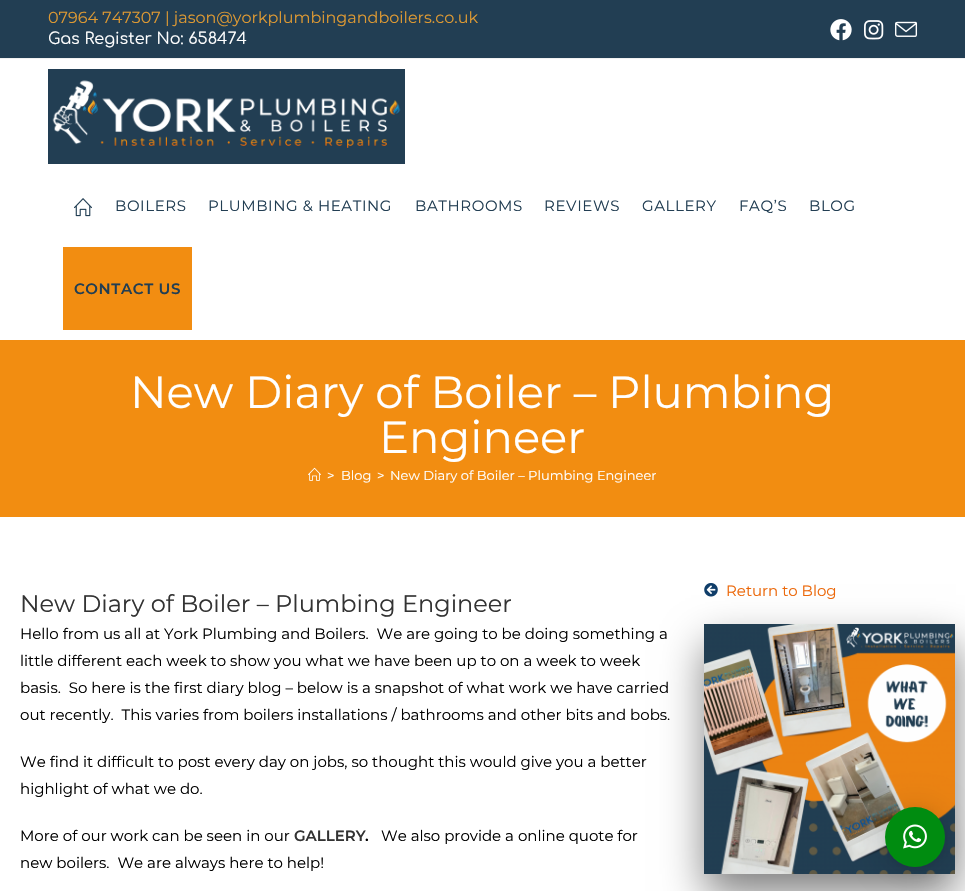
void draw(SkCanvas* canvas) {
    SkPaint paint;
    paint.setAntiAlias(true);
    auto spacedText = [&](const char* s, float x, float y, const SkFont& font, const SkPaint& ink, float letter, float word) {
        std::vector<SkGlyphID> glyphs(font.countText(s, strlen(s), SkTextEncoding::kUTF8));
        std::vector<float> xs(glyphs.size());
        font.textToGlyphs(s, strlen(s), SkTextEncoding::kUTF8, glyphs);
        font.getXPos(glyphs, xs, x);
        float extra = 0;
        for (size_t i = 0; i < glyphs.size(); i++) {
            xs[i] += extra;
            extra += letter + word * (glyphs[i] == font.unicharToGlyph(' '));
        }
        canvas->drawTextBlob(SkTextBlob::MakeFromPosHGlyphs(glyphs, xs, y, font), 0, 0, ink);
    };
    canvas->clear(0xFFFFFFFF);
    paint.setColor(0xFF223E53);
    canvas->drawRect(SkRect::MakeXYWH(0, 0, 965, 58), paint);
    paint.setColor(0xFFF1F1F1);
    canvas->drawRect(SkRect::MakeXYWH(0, 58, 965, 1), paint);
    SkFont font1(fontMgr->matchFamilyStyle("Montserrat", SkFontStyle::Normal()), 16);
    font1.setSubpixel(true);
    paint.setColor(0xFFDD9933);
    canvas->drawString("07964 747307 | jason@yorkplumbingandboilers.co.uk", 48, 23, font1, paint);
    SkFont font2(fontMgr->matchFamilyStyle("Comfortaa", SkFontStyle::Normal()), 16);
    font2.setSubpixel(true);
    paint.setColor(0xFFFFFFFF);
    canvas->drawString("Gas Register No: 658474", 48, 44, font2, paint);
    canvas->drawImageRect(SkImages::DeferredFromEncodedData(SkData::MakeFromFileName("img1.png")), SkRect::MakeXYWH(830, 19, 22, 22), SkSamplingOptions());
    canvas->drawImageRect(SkImages::DeferredFromEncodedData(SkData::MakeFromFileName("img2.png")), SkRect::MakeXYWH(864, 20, 20, 20), SkSamplingOptions());
    canvas->drawImageRect(SkImages::DeferredFromEncodedData(SkData::MakeFromFileName("img3.png")), SkRect::MakeXYWH(895, 21, 23, 16), SkSamplingOptions());
    canvas->drawImageRect(SkImages::DeferredFromEncodedData(SkData::MakeFromFileName("img4.png")), SkRect::MakeXYWH(48, 69, 357, 95), SkSamplingOptions());
    canvas->drawImageRect(SkImages::DeferredFromEncodedData(SkData::MakeFromFileName("img5.png")), SkRect::MakeXYWH(74, 198, 18, 19), SkSamplingOptions());
    SkFont font3(fontMgr->matchFamilyStyle("Montserrat", SkFontStyle::Normal()), 15);
    font3.setSubpixel(true);
    paint.setColor(0xFF223E53);
    spacedText("BOILERS", 115, 211, font3, paint, 0.6f, 0);
    spacedText("PLUMBING & HEATING", 208, 211, font3, paint, 0.6f, 0);
    spacedText("BATHROOMS", 415, 211, font3, paint, 0.6f, 0);
    spacedText("REVIEWS", 544, 211, font3, paint, 0.6f, 0);
    spacedText("GALLERY", 642, 211, font3, paint, 0.6f, 0);
    spacedText("FAQ’S", 739, 211, font3, paint, 0.6f, 0);
    spacedText("BLOG", 809, 211, font3, paint, 0.6f, 0);
    paint.setColor(0xFFF28D11);
    canvas->drawRect(SkRect::MakeXYWH(63, 247, 129, 83), paint);
    SkFont font4(fontMgr->matchFamilyStyle("Montserrat", SkFontStyle(600, SkFontStyle::kNormal_Width, SkFontStyle::kUpright_Slant)), 15);
    font4.setSubpixel(true);
    paint.setColor(0xFF223E53);
    spacedText("CONTACT US", 74, 294, font4, paint, 0.6f, 0);
    paint.setColor(0xFFF28D11);
    canvas->drawRect(SkRect::MakeXYWH(0, 340, 965, 177), paint);
    SkFont font5(fontMgr->matchFamilyStyle("Montserrat", SkFontStyle::Normal()), 45);
    font5.setSubpixel(true);
    paint.setColor(0xFFFFFFFF);
    canvas->drawString("New Diary of Boiler – Plumbing", 130, 408, font5, paint);
    canvas->drawString("Engineer", 379, 453, font5, paint);
    canvas->drawImageRect(SkImages::DeferredFromEncodedData(SkData::MakeFromFileName("img6.png")), SkRect::MakeXYWH(308, 467, 13, 14), SkSamplingOptions());
    SkFont font6(fontMgr->matchFamilyStyle("Montserrat", SkFontStyle::Normal()), 13);
    font6.setSubpixel(true);
    canvas->drawString(">", 327, 480, font6, paint);
    canvas->drawString("Blog", 341, 480, font6, paint);
    canvas->drawString(">", 377, 480, font6, paint);
    canvas->drawString("New Diary of Boiler – Plumbing Engineer", 390, 480, font6, paint);
    canvas->drawImageRect(SkImages::DeferredFromEncodedData(SkData::MakeFromFileName("img8.png")), SkRect::MakeXYWH(704, 583, 14, 14), SkSamplingOptions());
    paint.setColor(0x80000000);
    paint.setMaskFilter(SkMaskFilter::MakeBlur(kNormal_SkBlurStyle, 20));
    canvas->drawRect(SkRect::MakeXYWH(705, 644, 251, 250), paint);
    paint.setMaskFilter(nullptr);
    canvas->drawImageRect(SkImages::DeferredFromEncodedData(SkData::MakeFromFileName("img7.png")), SkRect::MakeXYWH(704, 624, 251, 250), SkSamplingOptions());
    paint.setColor(0xFFEC6708);
    canvas->drawString("Return to Blog", 726, 596, font3, paint);
    SkFont font7(fontMgr->matchFamilyStyle("Montserrat", SkFontStyle::Normal()), 24);
    font7.setSubpixel(true);
    paint.setColor(0xFF333333);
    canvas->drawString("New Diary of Boiler – Plumbing Engineer", 20, 612, font7, paint);
    paint.setColor(0xFF000000);
    canvas->drawString("Hello from us all at York Plumbing and Boilers.  We are going to be doing something a", 20, 639, font3, paint);
    canvas->drawString("little different each week to show you what we have been up to on a week to week", 20, 666, font3, paint);
    canvas->drawString("basis.  So here is the first diary blog – below is a snapshot of what work we have carried", 20, 693, font3, paint);
    canvas->drawString("out recently.  This varies from boilers installations / bathrooms and other bits and bobs.", 20, 720, font3, paint);
    canvas->drawString("We find it difficult to post every day on jobs, so thought this would give you a better", 20, 767, font3, paint);
    canvas->drawString("highlight of what we do.", 20, 794, font3, paint);
    canvas->drawString("More of our work can be seen in our", 20, 841, font3, paint);
    paint.setColor(0xFF333333);
    canvas->drawString("GALLERY", 294, 841, font4, paint);
    paint.setColor(0xFF000000);
    canvas->drawString(".", 365, 841, font4, paint);
    canvas->drawString("We also provide a online quote for", 381, 841, font3, paint);
    canvas->drawString("new boilers.  We are always here to help!", 20, 868, font3, paint);
    paint.setColor(0x29000000);
    paint.setMaskFilter(SkMaskFilter::MakeBlur(kNormal_SkBlurStyle, 16));
    canvas->drawRoundRect(SkRect::MakeXYWH(885, 809, 60, 60), 30, 30, paint);
    paint.setMaskFilter(nullptr);
    paint.setColor(0x0F000000);
    paint.setMaskFilter(SkMaskFilter::MakeBlur(kNormal_SkBlurStyle, 3));
    canvas->drawRoundRect(SkRect::MakeXYWH(885, 808, 60, 60), 30, 30, paint);
    paint.setMaskFilter(nullptr);
    paint.setColor(0xFF008C10);
    canvas->drawCircle(915, 837, 30, paint);
    canvas->drawImageRect(SkImages::DeferredFromEncodedData(SkData::MakeFromFileName("img9.png")), SkRect::MakeXYWH(903, 824, 24, 25), SkSamplingOptions());
}
